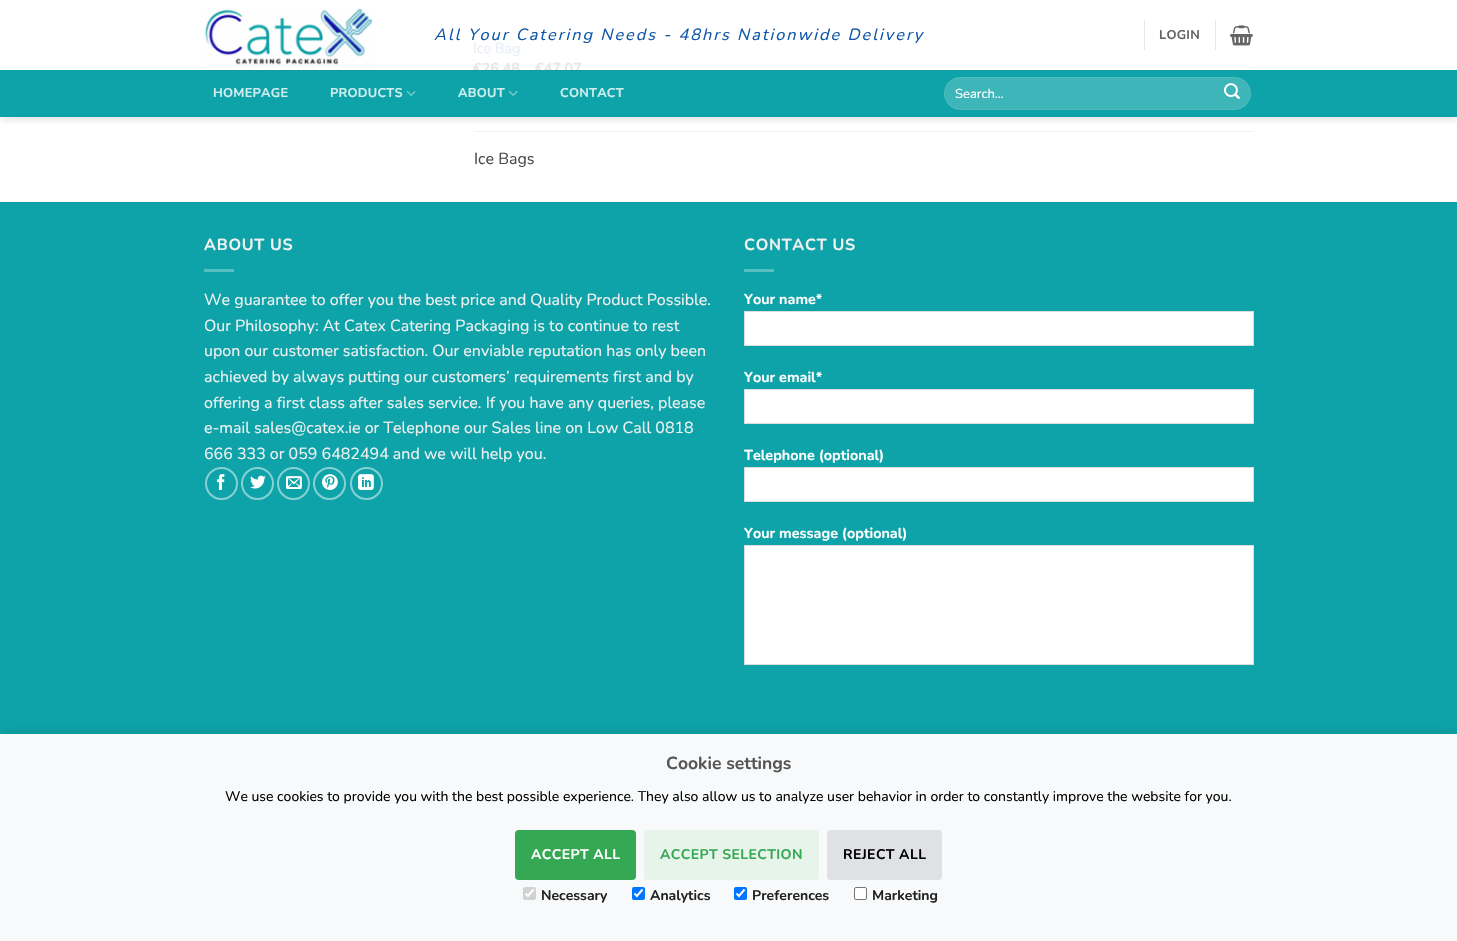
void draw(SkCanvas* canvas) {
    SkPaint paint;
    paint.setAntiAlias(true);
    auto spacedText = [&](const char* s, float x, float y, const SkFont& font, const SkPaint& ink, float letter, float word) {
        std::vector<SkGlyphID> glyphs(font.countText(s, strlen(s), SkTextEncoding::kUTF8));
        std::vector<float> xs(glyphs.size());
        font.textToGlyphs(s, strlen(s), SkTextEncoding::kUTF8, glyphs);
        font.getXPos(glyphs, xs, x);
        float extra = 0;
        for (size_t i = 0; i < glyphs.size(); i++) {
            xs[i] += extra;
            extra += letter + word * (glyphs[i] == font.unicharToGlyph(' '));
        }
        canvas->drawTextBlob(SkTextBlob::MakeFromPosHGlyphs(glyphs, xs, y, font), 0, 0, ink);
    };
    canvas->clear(0xFFFFFFFF);
    paint.setColor(0xFFF2F2F2);
    canvas->drawRect(SkRect::MakeXYWH(474, 131, 780, 1), paint);
    canvas->save();
    canvas->clipRect(SkRect::MakeXYWH(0, 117, 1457, 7));
    paint.setColor(0x26000000);
    paint.setMaskFilter(SkMaskFilter::MakeBlur(kNormal_SkBlurStyle, 5));
    canvas->drawRect(SkRect::MakeXYWH(1, 1, 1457, 117), paint);
    paint.setMaskFilter(nullptr);
    canvas->restore();
    canvas->drawImageRect(SkImages::DeferredFromEncodedData(SkData::MakeFromFileName("img1.png")), SkRect::MakeXYWH(205, 8, 167, 57), SkSamplingOptions());
    SkFont font1(fontMgr->matchFamilyStyle("Nunito", SkFontStyle::Italic()), 16.3f);
    font1.setSubpixel(true);
    paint.setColor(0xFF0D55A8);
    spacedText("All Your Catering Needs - 48hrs Nationwide Delivery", 434, 40, font1, paint, 2, 0);
    paint.setColor(0xFFE6E6E6);
    canvas->drawRect(SkRect::MakeXYWH(1144, 20, 1, 30), paint);
    SkFont font2(fontMgr->matchFamilyStyle("Nunito", SkFontStyle::Bold()), 12.75f);
    font2.setSubpixel(true);
    paint.setColor(0xFF656565);
    spacedText("LOGIN", 1159, 39, font2, paint, 0.25f, 0);
    paint.setColor(0xFFE6E6E6);
    canvas->drawRect(SkRect::MakeXYWH(1215, 20, 1, 30), paint);
    canvas->drawImageRect(SkImages::DeferredFromEncodedData(SkData::MakeFromFileName("img2.png")), SkRect::MakeXYWH(1230, 25, 23, 21), SkSamplingOptions());
    SkFont font3(fontMgr->matchFamilyStyle("Nunito", SkFontStyle::Bold()), 14.4f);
    font3.setSubpixel(true);
    paint.setColor(0xFFE7E7E7);
    canvas->drawString("€26.48", 473, 73, font3, paint);
    canvas->drawString("€47.07", 535, 73, font3, paint);
    paint.setColor(0xFF0DA3A8);
    canvas->drawRect(SkRect::MakeXYWH(0, 70, 1457, 47), paint);
    paint.setColor(0xFF139A9F);
    canvas->drawRect(SkRect::MakeXYWH(204, 70, 1050, 1), paint);
    paint.setColor(0xFFCFEDEE);
    spacedText("HOMEPAGE", 213, 97, font2, paint, 0.25f, 0);
    spacedText("PRODUCTS", 330, 97, font2, paint, 0.25f, 0);
    canvas->drawImageRect(SkImages::DeferredFromEncodedData(SkData::MakeFromFileName("img3.png")), SkRect::MakeXYWH(406, 90, 10, 6), SkSamplingOptions());
    spacedText("ABOUT", 458, 97, font2, paint, 0.25f, 0);
    canvas->drawImageRect(SkImages::DeferredFromEncodedData(SkData::MakeFromFileName("img3.png")), SkRect::MakeXYWH(508, 90, 10, 6), SkSamplingOptions());
    spacedText("CONTACT", 560, 97, font2, paint, 0.25f, 0);
    paint.setColor(0xFF3DB5B9);
    canvas->drawRoundRect(SkRect::MakeXYWH(944, 77, 307, 33), 16.5f, 16.5f, paint);
    paint.setStyle(SkPaint::kStroke_Style);
    paint.setStrokeWidth(1);
    paint.setColor(0x17FFFFFF);
    canvas->drawRoundRect(SkRect::MakeXYWH(944.5f, 77.5f, 306, 32), 16, 16, paint);
    SkFont font4(fontMgr->matchFamilyStyle("Nunito", SkFontStyle::Normal()), 13);
    font4.setSubpixel(true);
    paint.setStyle(SkPaint::kFill_Style);
    paint.setColor(0xFFFFFFFF);
    canvas->drawString("Search…", 955, 98, font4, paint);
    canvas->drawImageRect(SkImages::DeferredFromEncodedData(SkData::MakeFromFileName("img4.png")), SkRect::MakeXYWH(1224, 83, 16, 16), SkSamplingOptions());
    SkFont font5(fontMgr->matchFamilyStyle("Nunito", SkFontStyle::Normal()), 14.4f);
    font5.setSubpixel(true);
    paint.setColor(0xFFE7EEF6);
    canvas->drawString("Ice Bag", 473, 53, font5, paint);
    SkFont font6(fontMgr->matchFamilyStyle("Nunito", SkFontStyle::Normal()), 16);
    font6.setSubpixel(true);
    paint.setColor(0xFF4A4A4A);
    canvas->drawString("Ice Bags", 474, 164, font6, paint);
    paint.setColor(0xFF0DA3A8);
    canvas->drawRect(SkRect::MakeXYWH(0, 203, 1457, 531), paint);
    paint.setColor(0xFF0C9BA0);
    canvas->drawRect(SkRect::MakeXYWH(0, 202, 1457, 1), paint);
    SkFont font7(fontMgr->matchFamilyStyle("Nunito", SkFontStyle::Bold()), 16);
    font7.setSubpixel(true);
    paint.setColor(0xFFF1F1F1);
    spacedText("ABOUT US", 204, 250, font7, paint, 0.75f, 0);
    paint.setColor(0xFF56BFC2);
    canvas->drawRect(SkRect::MakeXYWH(204, 269, 30, 3), paint);
    paint.setColor(0xFFF1F1F1);
    canvas->drawString("We guarantee to offer you the best price and Quality Product Possible.", 204, 305, font6, paint);
    canvas->drawString("Our Philosophy: At Catex Catering Packaging is to continue to rest", 204, 331, font6, paint);
    canvas->drawString("upon our customer satisfaction. Our enviable reputation has only been", 204, 356, font6, paint);
    canvas->drawString("achieved by always putting our customers’ requirements first and by", 204, 382, font6, paint);
    canvas->drawString("offering a first class after sales service. If you have any queries, please", 204, 408, font6, paint);
    canvas->drawString("e-mail sales@catex.ie or Telephone our Sales line on Low Call 0818", 204, 433, font6, paint);
    canvas->drawString("666 333 or 059 6482494 and we will help you.", 204, 459, font6, paint);
    paint.setStyle(SkPaint::kStroke_Style);
    paint.setStrokeWidth(2);
    paint.setColor(0xFF86D1D4);
    canvas->drawCircle(221.5f, 483.5f, 15.5f, paint);
    canvas->drawImageRect(SkImages::DeferredFromEncodedData(SkData::MakeFromFileName("img5.png")), SkRect::MakeXYWH(216, 474, 9, 16), SkSamplingOptions());
    canvas->drawCircle(257.5f, 483.5f, 15.5f, paint);
    canvas->drawImageRect(SkImages::DeferredFromEncodedData(SkData::MakeFromFileName("img6.png")), SkRect::MakeXYWH(250, 475, 16, 14), SkSamplingOptions());
    canvas->drawCircle(293.5f, 483.5f, 15.5f, paint);
    canvas->drawImageRect(SkImages::DeferredFromEncodedData(SkData::MakeFromFileName("img7.png")), SkRect::MakeXYWH(286, 476, 16, 13), SkSamplingOptions());
    canvas->drawCircle(329.5f, 483.5f, 15.5f, paint);
    canvas->drawImageRect(SkImages::DeferredFromEncodedData(SkData::MakeFromFileName("img8.png")), SkRect::MakeXYWH(322, 474, 16, 16), SkSamplingOptions());
    canvas->drawCircle(366.5f, 483.5f, 15.5f, paint);
    canvas->drawImageRect(SkImages::DeferredFromEncodedData(SkData::MakeFromFileName("img9.png")), SkRect::MakeXYWH(358, 474, 16, 16), SkSamplingOptions());
    paint.setStyle(SkPaint::kFill_Style);
    paint.setColor(0xFFF1F1F1);
    spacedText("CONTACT US", 744, 250, font7, paint, 0.75f, 0);
    paint.setColor(0xFF56BFC2);
    canvas->drawRect(SkRect::MakeXYWH(744, 269, 30, 3), paint);
    paint.setColor(0xFFFFFFFF);
    canvas->drawString("Your name*", 744, 304, font3, paint);
    canvas->drawRect(SkRect::MakeXYWH(744.5f, 311.5f, 509, 34), paint);
    paint.setStyle(SkPaint::kStroke_Style);
    paint.setStrokeWidth(1);
    paint.setColor(0xFFDDDDDD);
    canvas->drawRect(SkRect::MakeXYWH(744.5f, 311.5f, 509, 34), paint);
    paint.setStyle(SkPaint::kFill_Style);
    paint.setColor(0xFFFFFFFF);
    canvas->drawString("Your email*", 744, 382, font3, paint);
    canvas->drawRect(SkRect::MakeXYWH(744.5f, 389.5f, 509, 34), paint);
    paint.setStyle(SkPaint::kStroke_Style);
    paint.setColor(0xFFDDDDDD);
    canvas->drawRect(SkRect::MakeXYWH(744.5f, 389.5f, 509, 34), paint);
    paint.setStyle(SkPaint::kFill_Style);
    paint.setColor(0xFFFFFFFF);
    canvas->drawString("Telephone (optional)", 744, 460, font3, paint);
    canvas->drawRect(SkRect::MakeXYWH(744.5f, 467.5f, 509, 34), paint);
    paint.setStyle(SkPaint::kStroke_Style);
    paint.setColor(0xFFDDDDDD);
    canvas->drawRect(SkRect::MakeXYWH(744.5f, 467.5f, 509, 34), paint);
    paint.setStyle(SkPaint::kFill_Style);
    paint.setColor(0xFFFFFFFF);
    canvas->drawString("Your message (optional)", 744, 538, font3, paint);
    canvas->drawRect(SkRect::MakeXYWH(744.5f, 545.5f, 509, 119), paint);
    paint.setStyle(SkPaint::kStroke_Style);
    paint.setColor(0xFFDDDDDD);
    canvas->drawRect(SkRect::MakeXYWH(744.5f, 545.5f, 509, 119), paint);
    paint.setStyle(SkPaint::kFill_Style);
    paint.setColor(0x1A000000);
    paint.setMaskFilter(SkMaskFilter::MakeBlur(kNormal_SkBlurStyle, 5));
    canvas->drawRect(SkRect::MakeXYWH(0, 732, 1457, 207), paint);
    paint.setMaskFilter(nullptr);
    paint.setColor(0xFFF8F9FA);
    canvas->drawRect(SkRect::MakeXYWH(0, 734, 1457, 207), paint);
    SkFont font8(fontMgr->matchFamilyStyle("Nunito", SkFontStyle::Bold()), 17.5f);
    font8.setSubpixel(true);
    paint.setColor(0xFF555555);
    canvas->drawString("Cookie settings", 666, 769, font8, paint);
    SkFont font9(fontMgr->matchFamilyStyle("Nunito", SkFontStyle::Normal()), 14);
    font9.setSubpixel(true);
    paint.setColor(0xFF000000);
    canvas->drawString("We use cookies to provide you with the best possible experience. They also allow us to analyze user behavior in order to constantly improve the website for you.", 225, 801, font9, paint);
    paint.setColor(0xFF34A853);
    canvas->drawRoundRect(SkRect::MakeXYWH(515, 830, 121, 50), 4, 4, paint);
    SkFont font10(fontMgr->matchFamilyStyle("Nunito", SkFontStyle::Bold()), 14);
    font10.setSubpixel(true);
    paint.setColor(0xFFFFFFFF);
    spacedText("ACCEPT ALL", 531, 859, font10, paint, 0.4f, 0);
    paint.setColor(0xFFE6F4EA);
    canvas->drawRoundRect(SkRect::MakeXYWH(644, 830, 175, 50), 4, 4, paint);
    paint.setColor(0xFF34A853);
    spacedText("ACCEPT SELECTION", 660, 859, font10, paint, 0.4f, 0);
    paint.setColor(0xFFDFE1E5);
    canvas->drawRoundRect(SkRect::MakeXYWH(827, 830, 115, 50), 4, 4, paint);
    paint.setColor(0xFF000000);
    spacedText("REJECT ALL", 843, 859, font10, paint, 0.4f, 0);
    paint.setColor(0xFFD1D2D2);
    canvas->drawRoundRect(SkRect::MakeXYWH(523, 887, 13, 13), 2, 2, paint);
    paint.setStyle(SkPaint::kStroke_Style);
    paint.setStrokeWidth(2.1f);
    paint.setColor(0xFFFFFFFF);
    canvas->drawPath(SkPathBuilder().moveTo(525.5f, 893.5f).lineTo(528, 896).lineTo(533.5f, 889.5f).detach(), paint);
    paint.setStyle(SkPaint::kFill_Style);
    paint.setColor(0xFF222222);
    canvas->drawString("Necessary", 541, 900, font10, paint);
    paint.setColor(0xFF0075FF);
    canvas->drawRoundRect(SkRect::MakeXYWH(632, 887, 13, 13), 2, 2, paint);
    paint.setStyle(SkPaint::kStroke_Style);
    paint.setColor(0xFFFFFFFF);
    canvas->drawPath(SkPathBuilder().moveTo(634.5f, 893.5f).lineTo(637, 896).lineTo(642.5f, 889.5f).detach(), paint);
    paint.setStyle(SkPaint::kFill_Style);
    paint.setColor(0xFF222222);
    canvas->drawString("Analytics", 650, 900, font10, paint);
    paint.setColor(0xFF0075FF);
    canvas->drawRoundRect(SkRect::MakeXYWH(734, 887, 13, 13), 2, 2, paint);
    paint.setStyle(SkPaint::kStroke_Style);
    paint.setColor(0xFFFFFFFF);
    canvas->drawPath(SkPathBuilder().moveTo(736.5f, 893.5f).lineTo(739, 896).lineTo(744.5f, 889.5f).detach(), paint);
    paint.setStyle(SkPaint::kFill_Style);
    paint.setColor(0xFF222222);
    canvas->drawString("Preferences", 752, 900, font10, paint);
    paint.setColor(0xFFFFFFFF);
    canvas->drawRoundRect(SkRect::MakeXYWH(854.5f, 887.5f, 12, 12), 1.5f, 1.5f, paint);
    paint.setStyle(SkPaint::kStroke_Style);
    paint.setStrokeWidth(1);
    paint.setColor(0xFF767676);
    canvas->drawRoundRect(SkRect::MakeXYWH(854.5f, 887.5f, 12, 12), 1.5f, 1.5f, paint);
    paint.setStyle(SkPaint::kFill_Style);
    paint.setColor(0xFF222222);
    canvas->drawString("Marketing", 872, 900, font10, paint);
}
